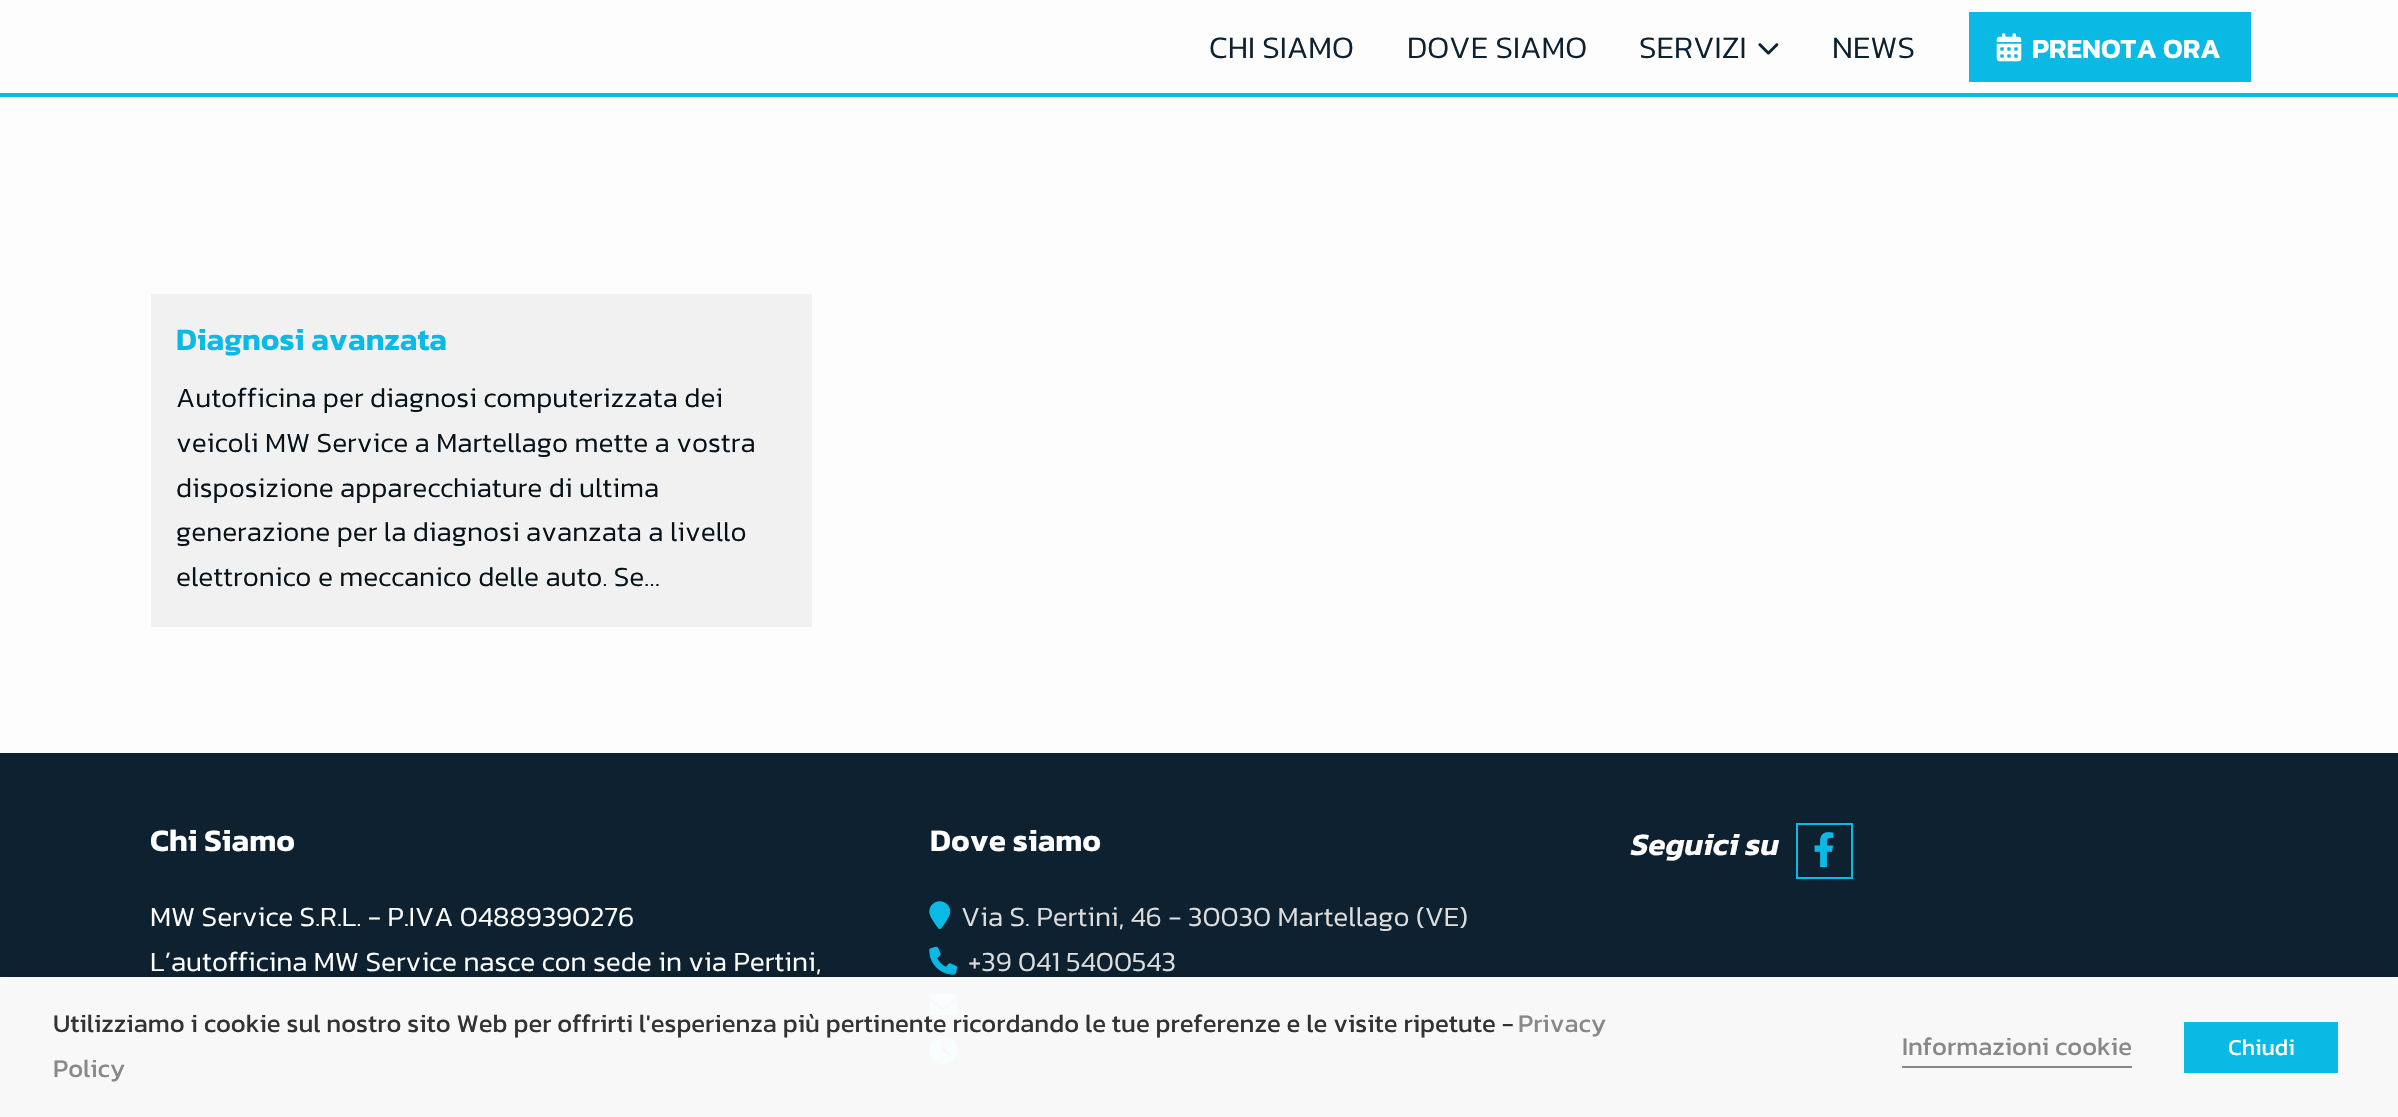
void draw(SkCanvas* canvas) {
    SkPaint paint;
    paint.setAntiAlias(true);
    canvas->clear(0xFFFDFDFE);
    paint.setColor(0xFF0BB9E5);
    canvas->drawRect(SkRect::MakeXYWH(0, 93, 2398, 4), paint);
    SkFont font1(fontMgr->matchFamilyStyle("Kanit", SkFontStyle(300, SkFontStyle::kNormal_Width, SkFontStyle::kUpright_Slant)), 31.5f);
    font1.setSubpixel(true);
    paint.setColor(0xFF0D2130);
    canvas->drawString("CHI SIAMO", 1209, 58, font1, paint);
    canvas->drawString("DOVE SIAMO", 1407, 58, font1, paint);
    canvas->drawString("SERVIZI", 1639, 58, font1, paint);
    canvas->drawImageRect(SkImages::DeferredFromEncodedData(SkData::MakeFromFileName("img1.png")), SkRect::MakeXYWH(1758, 43, 21, 12), SkSamplingOptions());
    canvas->drawString("NEWS", 1832, 58, font1, paint);
    paint.setColor(0xFF0BB9E5);
    canvas->drawRect(SkRect::MakeXYWH(1969, 12, 282, 70), paint);
    canvas->drawImageRect(SkImages::DeferredFromEncodedData(SkData::MakeFromFileName("img2.png")), SkRect::MakeXYWH(1996, 33, 26, 29), SkSamplingOptions());
    SkFont font2(fontMgr->matchFamilyStyle("Kanit", SkFontStyle(600, SkFontStyle::kNormal_Width, SkFontStyle::kUpright_Slant)), 28);
    font2.setSubpixel(true);
    paint.setColor(0xFFFFFFFF);
    canvas->drawString("PRENOTA ORA", 2032, 58, font2, paint);
    paint.setColor(0xFFF1F1F2);
    canvas->drawRect(SkRect::MakeXYWH(151, 294, 661, 333), paint);
    SkFont font3(fontMgr->matchFamilyStyle("Kanit", SkFontStyle(600, SkFontStyle::kNormal_Width, SkFontStyle::kUpright_Slant)), 31.5f);
    font3.setSubpixel(true);
    paint.setColor(0xFF0BB9E5);
    canvas->drawString("Diagnosi avanzata", 176, 350, font3, paint);
    SkFont font4(fontMgr->matchFamilyStyle("Kanit", SkFontStyle(300, SkFontStyle::kNormal_Width, SkFontStyle::kUpright_Slant)), 28);
    font4.setSubpixel(true);
    paint.setColor(0xFF071219);
    canvas->drawString("Autofficina per diagnosi computerizzata dei", 176, 407, font4, paint);
    canvas->drawString("veicoli MW Service a Martellago mette a vostra", 176, 452, font4, paint);
    canvas->drawString("disposizione apparecchiature di ultima", 176, 497, font4, paint);
    canvas->drawString("generazione per la diagnosi avanzata a livello", 176, 541, font4, paint);
    canvas->drawString("elettronico e meccanico delle auto. Se…", 176, 586, font4, paint);
    paint.setColor(0xFF0D2130);
    canvas->drawRect(SkRect::MakeXYWH(0, 753, 2398, 224), paint);
    paint.setColor(0xFFF8F8F9);
    canvas->drawRect(SkRect::MakeXYWH(0, 977, 2398, 140), paint);
    paint.setColor(0xFFFFFFFF);
    canvas->drawString("Chi Siamo", 150, 851, font3, paint);
    canvas->drawString("MW Service S.R.L. - P.IVA 04889390276", 150, 926, font4, paint);
    canvas->drawString("L’autofficina MW Service nasce con sede in via Pertini,", 150, 971, font4, paint);
    canvas->drawString("Dove siamo", 930, 851, font3, paint);
    canvas->drawImageRect(SkImages::DeferredFromEncodedData(SkData::MakeFromFileName("img3.png")), SkRect::MakeXYWH(929, 901, 22, 29), SkSamplingOptions());
    paint.setColor(0xFFDDDDDD);
    canvas->drawString("Via S. Pertini, 46 - 30030 Martellago (VE)", 961, 926, font4, paint);
    canvas->drawImageRect(SkImages::DeferredFromEncodedData(SkData::MakeFromFileName("img4.png")), SkRect::MakeXYWH(929, 946, 29, 29), SkSamplingOptions());
    canvas->drawString("+39 041 5400543", 968, 971, font4, paint);
    canvas->drawImageRect(SkImages::DeferredFromEncodedData(SkData::MakeFromFileName("img5.png")), SkRect::MakeXYWH(929, 994, 29, 21), SkSamplingOptions());
    canvas->drawImageRect(SkImages::DeferredFromEncodedData(SkData::MakeFromFileName("img6.png")), SkRect::MakeXYWH(929, 1036, 29, 28), SkSamplingOptions());
    SkFont font5(fontMgr->matchFamilyStyle("Kanit", SkFontStyle(600, SkFontStyle::kNormal_Width, SkFontStyle::kItalic_Slant)), 31.5f);
    font5.setSubpixel(true);
    paint.setColor(0xFFFFFFFF);
    canvas->drawString("Seguici su", 1631, 855, font5, paint);
    paint.setStyle(SkPaint::kStroke_Style);
    paint.setStrokeWidth(2);
    paint.setColor(0xFF0BB9E5);
    canvas->drawRect(SkRect::MakeXYWH(1797, 824, 55, 54), paint);
    canvas->drawImageRect(SkImages::DeferredFromEncodedData(SkData::MakeFromFileName("img7.png")), SkRect::MakeXYWH(1814, 832, 20, 36), SkSamplingOptions());
    canvas->save();
    canvas->clipRect(SkRect::MakeXYWH(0, 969, 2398, 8));
    paint.setStyle(SkPaint::kFill_Style);
    paint.setColor(0x80000000);
    paint.setMaskFilter(SkMaskFilter::MakeBlur(kNormal_SkBlurStyle, 9));
    canvas->drawRect(SkRect::MakeXYWH(0, 985, 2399, 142), paint);
    paint.setMaskFilter(nullptr);
    canvas->restore();
    SkFont font6(fontMgr->matchFamilyStyle("Kanit", SkFontStyle::Normal()), 25.67f);
    font6.setSubpixel(true);
    paint.setColor(0xFF333333);
    canvas->drawString("Utilizziamo i cookie sul nostro sito Web per offrirti l'esperienza più pertinente ricordando le tue preferenze e le visite ripetute -", 53, 1032, font6, paint);
    paint.setColor(0xFF898888);
    canvas->drawString("Privacy", 1518, 1032, font6, paint);
    canvas->drawString("Policy", 53, 1077, font6, paint);
    canvas->drawString("Informazioni cookie", 1902, 1055, font6, paint);
    canvas->drawRect(SkRect::MakeXYWH(1902, 1066, 230, 2), paint);
    paint.setColor(0xFF0BB9E5);
    canvas->drawRect(SkRect::MakeXYWH(2184, 1022, 154, 51), paint);
    SkFont font7(fontMgr->matchFamilyStyle("Kanit", SkFontStyle::Normal()), 23);
    font7.setSubpixel(true);
    paint.setColor(0xFFFFFFFF);
    canvas->drawString("Chiudi", 2228, 1055, font7, paint);
}
